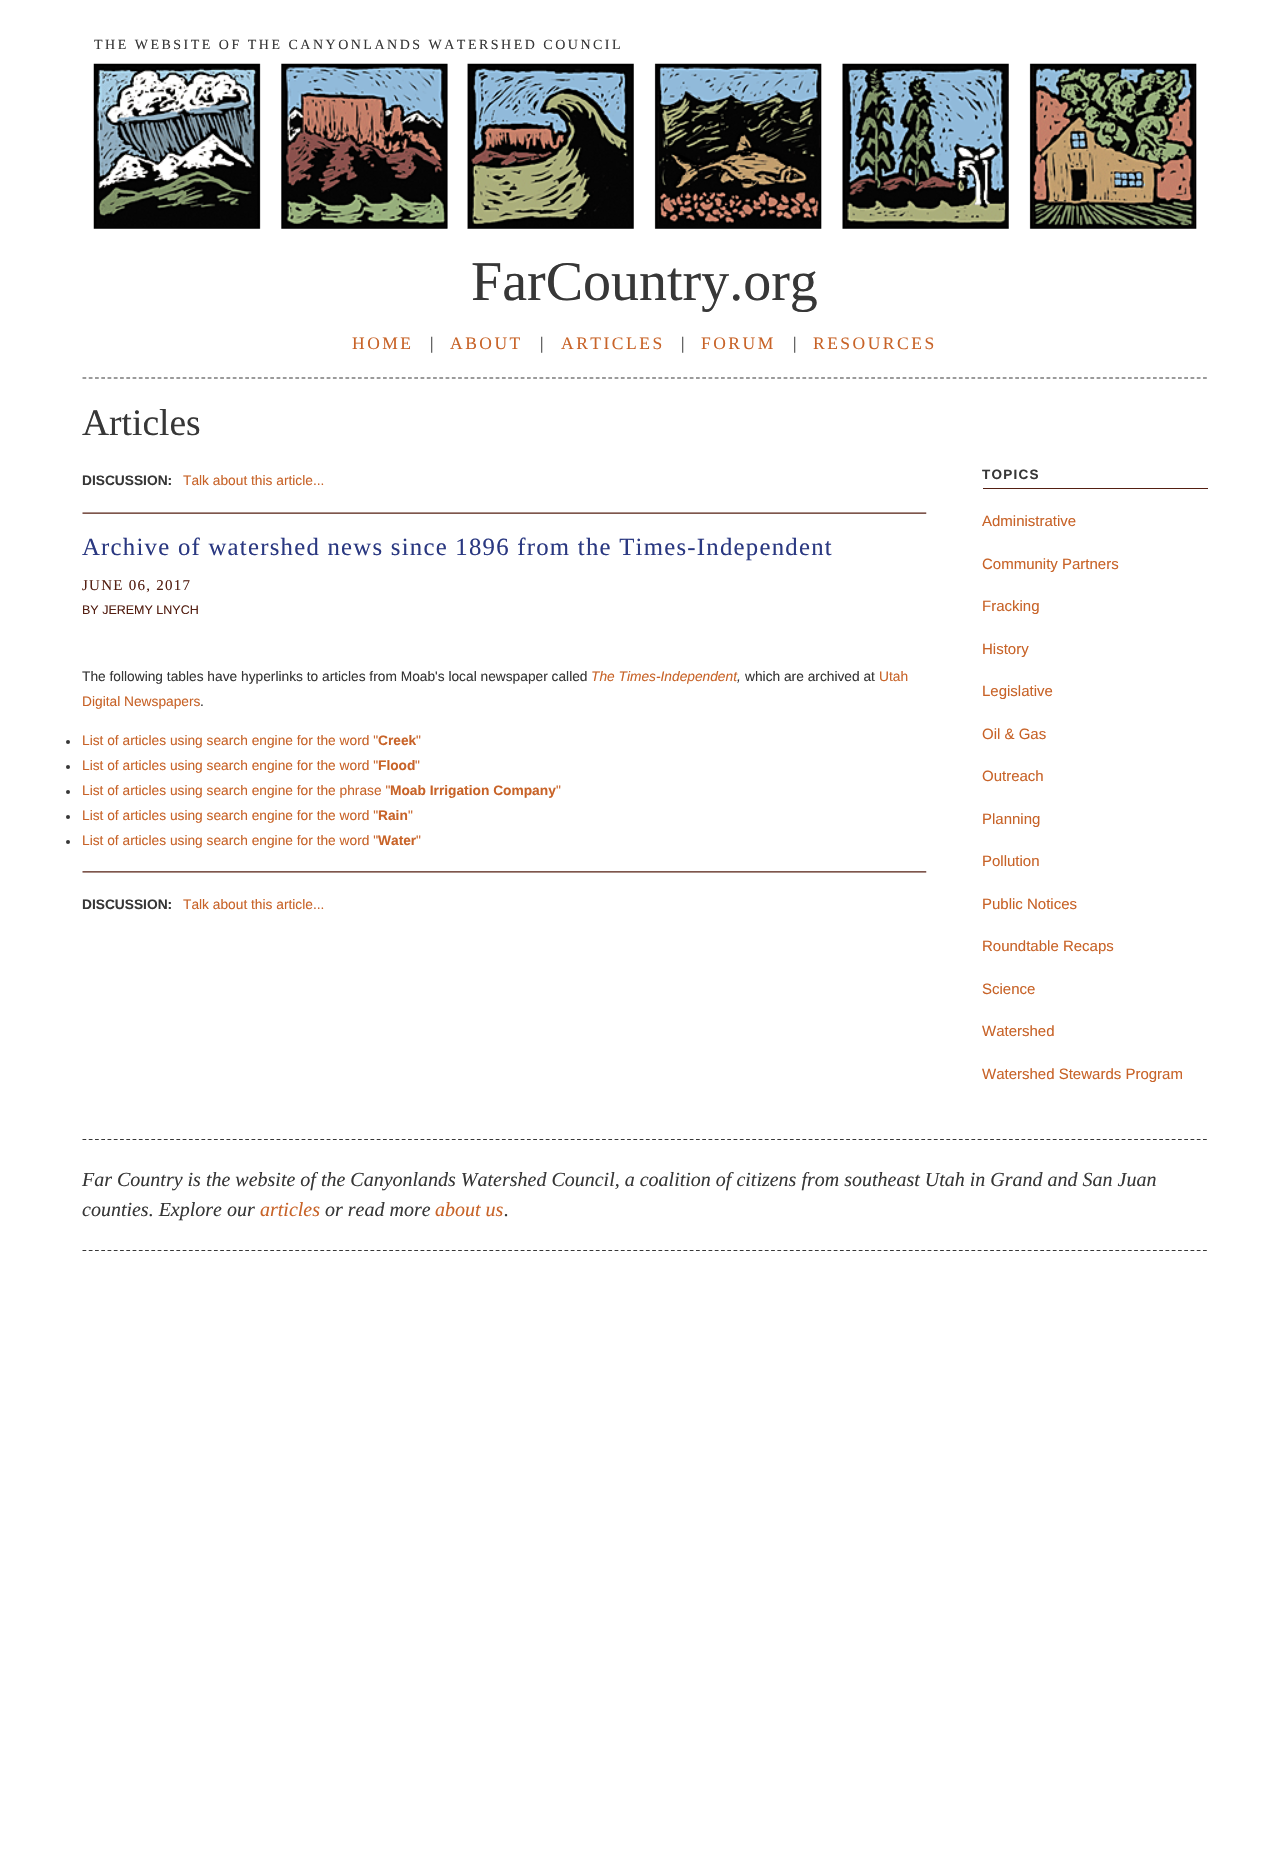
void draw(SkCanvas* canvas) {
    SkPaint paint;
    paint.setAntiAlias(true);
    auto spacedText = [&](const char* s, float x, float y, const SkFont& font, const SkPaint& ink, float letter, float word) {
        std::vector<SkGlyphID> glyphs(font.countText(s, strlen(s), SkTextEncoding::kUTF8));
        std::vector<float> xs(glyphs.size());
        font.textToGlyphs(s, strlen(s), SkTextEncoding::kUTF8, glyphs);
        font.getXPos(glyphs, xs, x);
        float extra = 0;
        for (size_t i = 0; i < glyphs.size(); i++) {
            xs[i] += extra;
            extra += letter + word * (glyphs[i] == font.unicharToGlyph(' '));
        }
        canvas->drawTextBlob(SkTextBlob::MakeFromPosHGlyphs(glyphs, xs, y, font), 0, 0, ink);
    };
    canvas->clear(0xFFFFFFFF);
    paint.setStyle(SkPaint::kStroke_Style);
    paint.setStrokeWidth(1.2f);
    paint.setColor(0xFF373737);
    paint.setPathEffect(SkDashPathEffect::Make({{3.75f, 2.51f}}, 0));
    canvas->drawPath(SkPathBuilder().moveTo(82.5f, 378).lineTo(1207.5f, 378).detach(), paint);
    paint.setPathEffect(nullptr);
    SkFont font1(fontMgr->matchFamilyStyle("Liberation Serif", SkFontStyle::Normal()), 14);
    font1.setSubpixel(true);
    paint.setStyle(SkPaint::kFill_Style);
    spacedText("THE WEBSITE OF THE CANYONLANDS WATERSHED COUNCIL", 94, 49, font1, paint, 2.5f, 0);
    canvas->drawImageRect(SkImages::DeferredFromEncodedData(SkData::MakeFromFileName("img1.png")), SkRect::MakeXYWH(93, 63, 1104, 166), SkSamplingOptions());
    SkFont font2(fontMgr->matchFamilyStyle("Liberation Serif", SkFontStyle::Normal()), 56);
    font2.setSubpixel(true);
    canvas->drawString("FarCountry.org", 471, 300, font2, paint);
    SkFont font3(fontMgr->matchFamilyStyle("Liberation Serif", SkFontStyle::Normal()), 17.5f);
    font3.setSubpixel(true);
    paint.setColor(0xFFC86328);
    spacedText("HOME", 352, 349, font3, paint, 2.5f, 0);
    paint.setColor(0xFF373737);
    canvas->drawString("|", 430, 349, font3, paint);
    paint.setColor(0xFFC86328);
    spacedText("ABOUT", 450, 349, font3, paint, 2.5f, 0);
    paint.setColor(0xFF373737);
    canvas->drawString("|", 540, 349, font3, paint);
    paint.setColor(0xFFC86328);
    spacedText("ARTICLES", 561, 349, font3, paint, 2.5f, 0);
    paint.setColor(0xFF373737);
    canvas->drawString("|", 681, 349, font3, paint);
    paint.setColor(0xFFC86328);
    spacedText("FORUM", 701, 349, font3, paint, 2.5f, 0);
    paint.setColor(0xFF373737);
    canvas->drawString("|", 793, 349, font3, paint);
    paint.setColor(0xFFC86328);
    spacedText("RESOURCES", 813, 349, font3, paint, 2.5f, 0);
    SkFont font4(fontMgr->matchFamilyStyle("Liberation Serif", SkFontStyle::Normal()), 37.5f);
    font4.setSubpixel(true);
    paint.setColor(0xFF373737);
    canvas->drawString("Articles", 82, 435, font4, paint);
    SkFont font5(fontMgr->matchFamilyStyle("Liberation Sans", SkFontStyle::Bold()), 13.75f);
    font5.setSubpixel(true);
    canvas->drawString("DISCUSSION:", 82, 485, font5, paint);
    SkFont font6(fontMgr->matchFamilyStyle("Liberation Sans", SkFontStyle::Normal()), 13.75f);
    font6.setSubpixel(true);
    paint.setColor(0xFFC86328);
    canvas->drawString("Talk about this article...", 183, 485, font6, paint);
    canvas->drawImageRect(SkImages::DeferredFromEncodedData(SkData::MakeFromFileName("img2.png")), SkRect::MakeXYWH(82, 512, 845, 2), SkSamplingOptions());
    SkFont font7(fontMgr->matchFamilyStyle("Liberation Serif", SkFontStyle::Normal()), 24.75f);
    font7.setSubpixel(true);
    paint.setColor(0xFF2A3881);
    spacedText("Archive of watershed news since 1896 from the Times-Independent", 82, 555, font7, paint, 1.25f, 0);
    SkFont font8(fontMgr->matchFamilyStyle("Liberation Serif", SkFontStyle::Normal()), 15);
    font8.setSubpixel(true);
    paint.setColor(0xFF541F12);
    spacedText("JUNE 06, 2017", 82, 590, font8, paint, 1.25f, 0);
    SkFont font9(fontMgr->matchFamilyStyle("Liberation Sans", SkFontStyle::Normal()), 12.5f);
    font9.setSubpixel(true);
    canvas->drawString("BY JEREMY LNYCH", 82, 614, font9, paint);
    paint.setColor(0xFF373737);
    canvas->drawString("The following tables have hyperlinks to articles from Moab's local newspaper called", 82, 681, font6, paint);
    SkFont font10(fontMgr->matchFamilyStyle("Liberation Sans", SkFontStyle::Italic()), 13.75f);
    font10.setSubpixel(true);
    paint.setColor(0xFFC86328);
    canvas->drawString("The Times-Independent", 591, 681, font10, paint);
    paint.setColor(0xFF373737);
    canvas->drawString(",", 737, 681, font10, paint);
    canvas->drawString("which are archived at", 745, 681, font6, paint);
    paint.setColor(0xFFC86328);
    canvas->drawString("Utah", 879, 681, font6, paint);
    canvas->drawString("Digital Newspapers", 82, 706, font6, paint);
    paint.setColor(0xFF373737);
    canvas->drawString(".", 200, 706, font6, paint);
    paint.setColor(0xFFC86328);
    canvas->drawString("List of articles using search engine for the word \"", 82, 745, font6, paint);
    canvas->drawString("Creek", 378, 745, font5, paint);
    canvas->drawString("\"", 416, 745, font6, paint);
    paint.setColor(0xFF373737);
    canvas->drawCircle(68, 742, 2, paint);
    paint.setColor(0xFFC86328);
    canvas->drawString("List of articles using search engine for the word \"", 82, 770, font6, paint);
    canvas->drawString("Flood", 378, 770, font5, paint);
    canvas->drawString("\"", 415, 770, font6, paint);
    paint.setColor(0xFF373737);
    canvas->drawCircle(68, 767, 2, paint);
    paint.setColor(0xFFC86328);
    canvas->drawString("List of articles using search engine for the phrase \"", 82, 795, font6, paint);
    canvas->drawString("Moab Irrigation Company", 390, 795, font5, paint);
    canvas->drawString("\"", 556, 795, font6, paint);
    paint.setColor(0xFF373737);
    canvas->drawCircle(68, 792, 2, paint);
    paint.setColor(0xFFC86328);
    canvas->drawString("List of articles using search engine for the word \"", 82, 820, font6, paint);
    canvas->drawString("Rain", 378, 820, font5, paint);
    canvas->drawString("\"", 408, 820, font6, paint);
    paint.setColor(0xFF373737);
    canvas->drawCircle(68, 817, 2, paint);
    paint.setColor(0xFFC86328);
    canvas->drawString("List of articles using search engine for the word \"", 82, 845, font6, paint);
    canvas->drawString("Water", 378, 845, font5, paint);
    canvas->drawString("\"", 416, 845, font6, paint);
    paint.setColor(0xFF373737);
    canvas->drawCircle(68, 842, 2, paint);
    canvas->drawImageRect(SkImages::DeferredFromEncodedData(SkData::MakeFromFileName("img3.png")), SkRect::MakeXYWH(82, 871, 845, 2), SkSamplingOptions());
    canvas->drawString("DISCUSSION:", 82, 909, font5, paint);
    paint.setColor(0xFFC86328);
    canvas->drawString("Talk about this article...", 183, 909, font6, paint);
    paint.setColor(0xFF541F12);
    canvas->drawRect(SkRect::MakeXYWH(983, 488, 225, 1), paint);
    SkFont font11(fontMgr->matchFamilyStyle("Liberation Sans", SkFontStyle::Bold()), 13.5f);
    font11.setSubpixel(true);
    paint.setColor(0xFF373737);
    spacedText("TOPICS", 982, 479, font11, paint, 1.25f, 0);
    SkFont font12(fontMgr->matchFamilyStyle("Liberation Sans", SkFontStyle::Normal()), 15);
    font12.setSubpixel(true);
    paint.setColor(0xFFC86328);
    canvas->drawString("Administrative", 982, 526, font12, paint);
    canvas->drawString("Community Partners", 982, 569, font12, paint);
    canvas->drawString("Fracking", 982, 611, font12, paint);
    canvas->drawString("History", 982, 654, font12, paint);
    canvas->drawString("Legislative", 982, 696, font12, paint);
    canvas->drawString("Oil & Gas", 982, 739, font12, paint);
    canvas->drawString("Outreach", 982, 781, font12, paint);
    canvas->drawString("Planning", 982, 824, font12, paint);
    canvas->drawString("Pollution", 982, 866, font12, paint);
    canvas->drawString("Public Notices", 982, 909, font12, paint);
    canvas->drawString("Roundtable Recaps", 982, 951, font12, paint);
    canvas->drawString("Science", 982, 994, font12, paint);
    canvas->drawString("Watershed", 982, 1036, font12, paint);
    canvas->drawString("Watershed Stewards Program", 982, 1079, font12, paint);
    paint.setStyle(SkPaint::kStroke_Style);
    paint.setColor(0xFF373737);
    paint.setPathEffect(SkDashPathEffect::Make({{3.75f, 2.51f}}, 0));
    canvas->drawPath(SkPathBuilder().moveTo(82.5f, 1139.5f).lineTo(1207.5f, 1139.5f).detach(), paint);
    paint.setPathEffect(nullptr);
    paint.setPathEffect(SkDashPathEffect::Make({{3.75f, 2.51f}}, 0));
    canvas->drawPath(SkPathBuilder().moveTo(82.5f, 1250.5f).lineTo(1207.5f, 1250.5f).detach(), paint);
    paint.setPathEffect(nullptr);
    SkFont font13(fontMgr->matchFamilyStyle("Liberation Serif", SkFontStyle::Italic()), 20);
    font13.setSubpixel(true);
    paint.setStyle(SkPaint::kFill_Style);
    canvas->drawString("Far Country is the website of the Canyonlands Watershed Council, a coalition of citizens from southeast Utah in Grand and San Juan", 82, 1186, font13, paint);
    canvas->drawString("counties. Explore our", 82, 1216, font13, paint);
    paint.setColor(0xFFC86328);
    canvas->drawString("articles", 260, 1216, font13, paint);
    paint.setColor(0xFF373737);
    canvas->drawString("or read more", 325, 1216, font13, paint);
    paint.setColor(0xFFC86328);
    canvas->drawString("about us", 435, 1216, font13, paint);
    paint.setColor(0xFF373737);
    canvas->drawString(".", 504, 1216, font13, paint);
}
